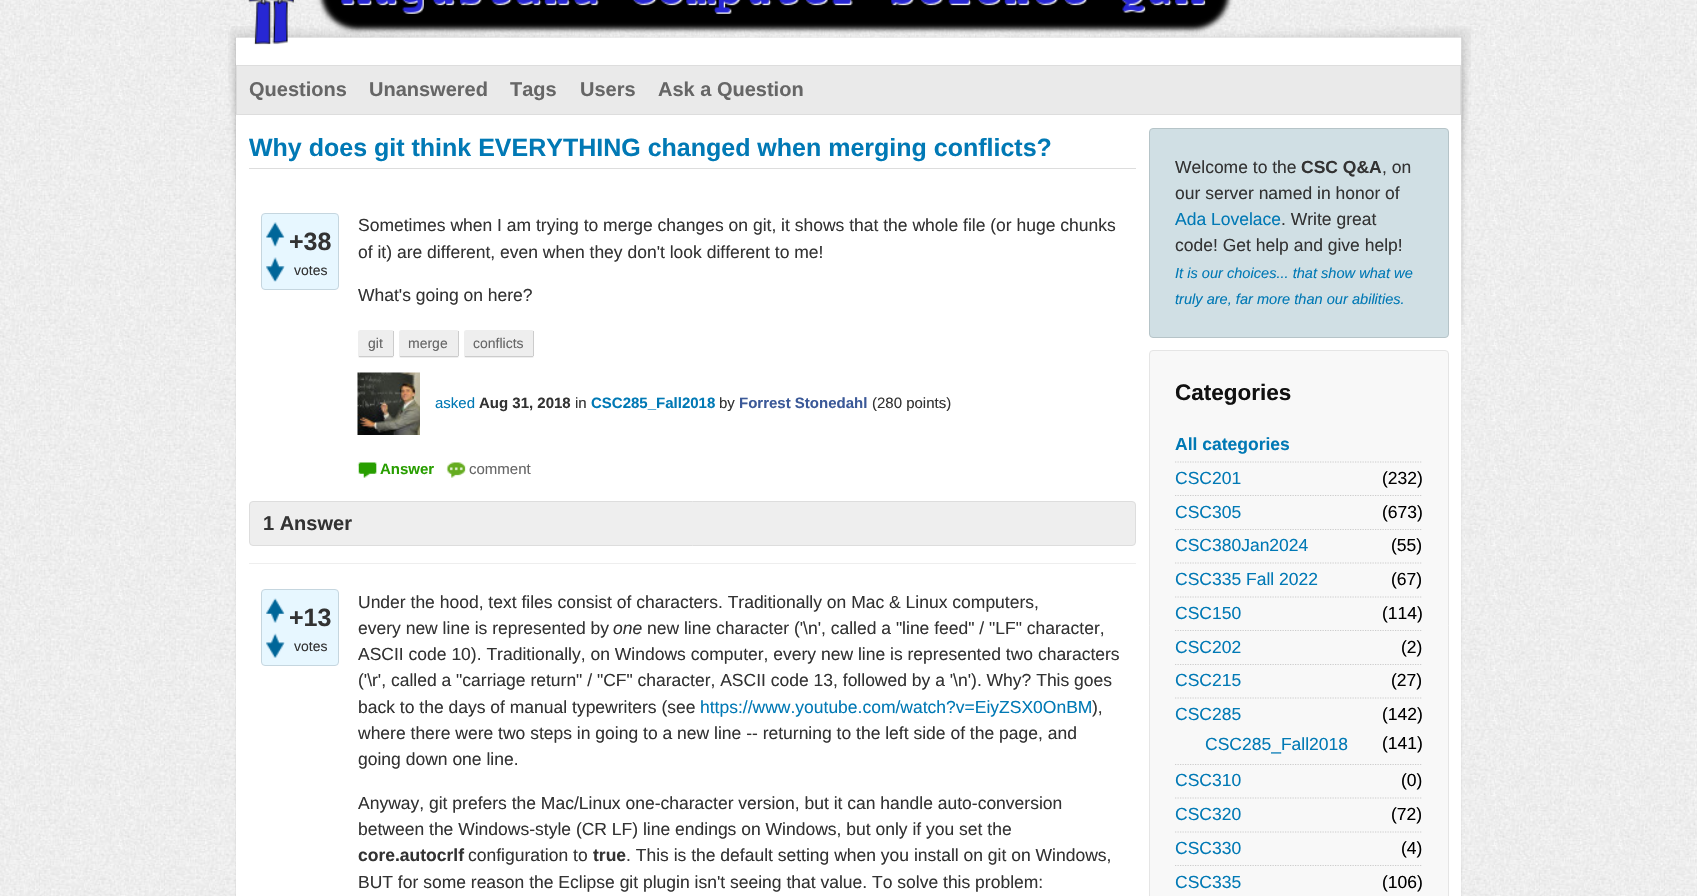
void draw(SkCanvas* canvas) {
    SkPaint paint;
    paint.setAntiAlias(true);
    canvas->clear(0xFFFFFFFF);
    canvas->drawImageRect(SkImages::DeferredFromEncodedData(SkData::MakeFromFileName("img1.png")), SkRect::MakeXYWH(0, 0, 1697, 896), SkSamplingOptions());
    canvas->drawImageRect(SkImages::DeferredFromEncodedData(SkData::MakeFromFileName("img3.png")), SkRect::MakeXYWH(228, 26, 1243, 549), SkSamplingOptions());
    paint.setColor(0x1A000000);
    paint.setMaskFilter(SkMaskFilter::MakeBlur(kNormal_SkBlurStyle, 1));
    canvas->drawRect(SkRect::MakeXYWH(236, 38, 1225, 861), paint);
    paint.setMaskFilter(nullptr);
    paint.setColor(0xFFFFFFFF);
    canvas->drawRect(SkRect::MakeXYWH(236, 38, 1225, 858), paint);
    canvas->drawImageRect(SkImages::DeferredFromEncodedData(SkData::MakeFromFileName("img2.png")), SkRect::MakeXYWH(248, 0, 985, 45), SkSamplingOptions());
    paint.setColor(0xFFEAEAEA);
    canvas->drawRect(SkRect::MakeXYWH(236.5f, 65.5f, 1224, 49), paint);
    paint.setStyle(SkPaint::kStroke_Style);
    paint.setStrokeWidth(1);
    paint.setColor(0xFFDDDDDD);
    canvas->drawRect(SkRect::MakeXYWH(236.5f, 65.5f, 1224, 49), paint);
    SkFont font1(fontMgr->matchFamilyStyle("Liberation Sans", SkFontStyle::Bold()), 20);
    font1.setSubpixel(true);
    paint.setStyle(SkPaint::kFill_Style);
    paint.setColor(0xFF666666);
    canvas->drawString("Questions", 249, 96, font1, paint);
    canvas->drawString("Unanswered", 369, 96, font1, paint);
    canvas->drawString("Tags", 510, 96, font1, paint);
    canvas->drawString("Users", 580, 96, font1, paint);
    canvas->drawString("Ask a Question", 658, 96, font1, paint);
    paint.setColor(0xFFDDDDDD);
    canvas->drawRect(SkRect::MakeXYWH(249, 168, 887, 1), paint);
    SkFont font2(fontMgr->matchFamilyStyle("Liberation Sans", SkFontStyle::Bold()), 25);
    font2.setSubpixel(true);
    paint.setColor(0xFF0179B5);
    canvas->drawString("Why does git think EVERYTHING changed when merging conflicts?", 249, 156, font2, paint);
    paint.setColor(0xFFE7F7FF);
    canvas->drawRoundRect(SkRect::MakeXYWH(261.5f, 213.5f, 77, 76), 3.5f, 3.5f, paint);
    paint.setStyle(SkPaint::kStroke_Style);
    paint.setColor(0xFFC5D6DF);
    canvas->drawRoundRect(SkRect::MakeXYWH(261.5f, 213.5f, 77, 76), 3.5f, 3.5f, paint);
    canvas->drawImageRect(SkImages::DeferredFromEncodedData(SkData::MakeFromFileName("img4.png")), SkRect::MakeXYWH(266, 222, 19, 25), SkSamplingOptions());
    canvas->drawImageRect(SkImages::DeferredFromEncodedData(SkData::MakeFromFileName("img5.png")), SkRect::MakeXYWH(266, 257, 19, 25), SkSamplingOptions());
    paint.setStyle(SkPaint::kFill_Style);
    paint.setColor(0xFF333333);
    canvas->drawString("+38", 289, 250, font2, paint);
    SkFont font3(fontMgr->matchFamilyStyle("Liberation Sans", SkFontStyle::Normal()), 14);
    font3.setSubpixel(true);
    canvas->drawString("votes", 294, 275, font3, paint);
    SkFont font4(fontMgr->matchFamilyStyle("Liberation Sans", SkFontStyle::Normal()), 17.5f);
    font4.setSubpixel(true);
    canvas->drawString("Sometimes when I am trying to merge changes on git, it shows that the whole file (or huge chunks", 358, 231, font4, paint);
    canvas->drawString("of it) are different, even when they don't look different to me!", 358, 258, font4, paint);
    canvas->drawString("What's going on here?", 358, 301, font4, paint);
    paint.setColor(0xFFEEEEEE);
    canvas->drawRoundRect(SkRect::MakeXYWH(358, 330, 36, 28), 2.5f, 2.5f, paint);
    paint.setColor(0xFFCCCCCC);
    canvas->drawRect(SkRect::MakeXYWH(393, 331, 1, 25), paint);
    canvas->drawRect(SkRect::MakeXYWH(359, 356, 34, 1), paint);
    paint.setColor(0xFF666666);
    canvas->drawString("git", 368, 348, font3, paint);
    paint.setColor(0xFFEEEEEE);
    canvas->drawRoundRect(SkRect::MakeXYWH(399, 330, 60, 28), 2.5f, 2.5f, paint);
    paint.setColor(0xFFCCCCCC);
    canvas->drawRect(SkRect::MakeXYWH(458, 331, 1, 25), paint);
    canvas->drawRect(SkRect::MakeXYWH(400, 356, 58, 1), paint);
    paint.setColor(0xFF666666);
    canvas->drawString("merge", 408, 348, font3, paint);
    paint.setColor(0xFFEEEEEE);
    canvas->drawRoundRect(SkRect::MakeXYWH(464, 330, 70, 28), 2.5f, 2.5f, paint);
    paint.setColor(0xFFCCCCCC);
    canvas->drawRect(SkRect::MakeXYWH(533, 331, 1, 25), paint);
    canvas->drawRect(SkRect::MakeXYWH(465, 356, 68, 1), paint);
    paint.setColor(0xFF666666);
    canvas->drawString("conflicts", 473, 348, font3, paint);
    canvas->drawImageRect(SkImages::DeferredFromEncodedData(SkData::MakeFromFileName("img6.png")), SkRect::MakeXYWH(357, 372, 63, 63), SkSamplingOptions());
    SkFont font5(fontMgr->matchFamilyStyle("Liberation Sans", SkFontStyle::Normal()), 15);
    font5.setSubpixel(true);
    paint.setColor(0xFF0179B5);
    canvas->drawString("asked", 435, 408, font5, paint);
    SkFont font6(fontMgr->matchFamilyStyle("Liberation Sans", SkFontStyle::Bold()), 15);
    font6.setSubpixel(true);
    paint.setColor(0xFF333333);
    canvas->drawString("Aug 31, 2018", 479, 408, font6, paint);
    canvas->drawString("in", 575, 408, font5, paint);
    paint.setColor(0xFF0179B5);
    canvas->drawString("CSC285_Fall2018", 591, 408, font6, paint);
    paint.setColor(0xFF333333);
    canvas->drawString("by", 719, 408, font5, paint);
    paint.setColor(0xFF3B5998);
    canvas->drawString("Forrest Stonedahl", 739, 408, font6, paint);
    paint.setColor(0xFF333333);
    canvas->drawString("(280 points)", 872, 408, font5, paint);
    canvas->drawImageRect(SkImages::DeferredFromEncodedData(SkData::MakeFromFileName("img7.png")), SkRect::MakeXYWH(357, 462, 20, 16), SkSamplingOptions());
    paint.setColor(0xFF289E00);
    canvas->drawString("Answer", 380, 474, font6, paint);
    canvas->drawImageRect(SkImages::DeferredFromEncodedData(SkData::MakeFromFileName("img8.png")), SkRect::MakeXYWH(446, 462, 20, 16), SkSamplingOptions());
    paint.setColor(0xFF666666);
    canvas->drawString("comment", 469, 474, font5, paint);
    paint.setColor(0xFFEEEEEE);
    canvas->drawRoundRect(SkRect::MakeXYWH(249.5f, 501.5f, 886, 44), 3.5f, 3.5f, paint);
    paint.setStyle(SkPaint::kStroke_Style);
    paint.setColor(0xFFDDDDDD);
    canvas->drawRoundRect(SkRect::MakeXYWH(249.5f, 501.5f, 886, 44), 3.5f, 3.5f, paint);
    paint.setStyle(SkPaint::kFill_Style);
    paint.setColor(0xFF333333);
    canvas->drawString("1 Answer", 263, 530, font1, paint);
    paint.setColor(0xFFEEEEEE);
    canvas->drawRect(SkRect::MakeXYWH(249, 563, 887, 1), paint);
    paint.setColor(0xFFE7F7FF);
    canvas->drawRoundRect(SkRect::MakeXYWH(261.5f, 589.5f, 77, 76), 3.5f, 3.5f, paint);
    paint.setStyle(SkPaint::kStroke_Style);
    paint.setColor(0xFFC5D6DF);
    canvas->drawRoundRect(SkRect::MakeXYWH(261.5f, 589.5f, 77, 76), 3.5f, 3.5f, paint);
    canvas->drawImageRect(SkImages::DeferredFromEncodedData(SkData::MakeFromFileName("img9.png")), SkRect::MakeXYWH(266, 598, 19, 25), SkSamplingOptions());
    canvas->drawImageRect(SkImages::DeferredFromEncodedData(SkData::MakeFromFileName("img10.png")), SkRect::MakeXYWH(266, 633, 19, 25), SkSamplingOptions());
    paint.setStyle(SkPaint::kFill_Style);
    paint.setColor(0xFF333333);
    canvas->drawString("+13", 289, 626, font2, paint);
    canvas->drawString("votes", 294, 651, font3, paint);
    canvas->drawString("Under the hood, text files consist of characters. Traditionally on Mac & Linux computers,", 358, 608, font4, paint);
    canvas->drawString("every new line is represented by", 358, 634, font4, paint);
    SkFont font7(fontMgr->matchFamilyStyle("Liberation Sans", SkFontStyle::Italic()), 17.5f);
    font7.setSubpixel(true);
    canvas->drawString("one", 613, 634, font7, paint);
    canvas->drawString("new line character ('\\n', called a \"line feed\" / \"LF\" character,", 647, 634, font4, paint);
    canvas->drawString("ASCII code 10). Traditionally, on Windows computer, every new line is represented two characters", 358, 660, font4, paint);
    canvas->drawString("('\\r', called a \"carriage return\" / \"CF\" character, ASCII code 13, followed by a '\\n'). Why? This goes", 358, 686, font4, paint);
    canvas->drawString("back to the days of manual typewriters (see", 358, 713, font4, paint);
    paint.setColor(0xFF0179B5);
    canvas->drawString("https://www.youtube.com/watch?v=EiyZSX0OnBM", 700, 713, font4, paint);
    paint.setColor(0xFF333333);
    canvas->drawString("),", 1092, 713, font4, paint);
    canvas->drawString("where there were two steps in going to a new line -- returning to the left side of the page, and", 358, 739, font4, paint);
    canvas->drawString("going down one line.", 358, 765, font4, paint);
    canvas->drawString("Anyway, git prefers the Mac/Linux one-character version, but it can handle auto-conversion", 358, 809, font4, paint);
    canvas->drawString("between the Windows-style (CR LF) line endings on Windows, but only if you set the", 358, 835, font4, paint);
    SkFont font8(fontMgr->matchFamilyStyle("Liberation Sans", SkFontStyle::Bold()), 17.5f);
    font8.setSubpixel(true);
    canvas->drawString("core.autocrlf", 358, 861, font8, paint);
    canvas->drawString("configuration to", 468, 861, font4, paint);
    canvas->drawString("true", 593, 861, font8, paint);
    canvas->drawString(". This is the default setting when you install on git on Windows,", 626, 861, font4, paint);
    canvas->drawString("BUT for some reason the Eclipse git plugin isn't seeing that value. To solve this problem:", 358, 888, font4, paint);
    paint.setColor(0xFFD0DFE4);
    canvas->drawRoundRect(SkRect::MakeXYWH(1149.5f, 128.5f, 299, 209), 3.5f, 3.5f, paint);
    paint.setStyle(SkPaint::kStroke_Style);
    paint.setColor(0xFFB6C4C8);
    canvas->drawRoundRect(SkRect::MakeXYWH(1149.5f, 128.5f, 299, 209), 3.5f, 3.5f, paint);
    paint.setStyle(SkPaint::kFill_Style);
    paint.setColor(0xFF333333);
    canvas->drawString("Welcome to the", 1175, 173, font4, paint);
    canvas->drawString("CSC Q&A", 1301, 173, font8, paint);
    canvas->drawString(", on", 1382, 173, font4, paint);
    canvas->drawString("our server named in honor of", 1175, 199, font4, paint);
    paint.setColor(0xFF0179B5);
    canvas->drawString("Ada Lovelace", 1175, 225, font4, paint);
    paint.setColor(0xFF333333);
    canvas->drawString(". Write great", 1281, 225, font4, paint);
    canvas->drawString("code! Get help and give help!", 1175, 251, font4, paint);
    SkFont font9(fontMgr->matchFamilyStyle("Liberation Sans", SkFontStyle::Italic()), 14.6f);
    font9.setSubpixel(true);
    paint.setColor(0xFF0179B5);
    canvas->drawString("It is our choices... that show what we", 1175, 278, font9, paint);
    canvas->drawString("truly are, far more than our abilities.", 1175, 304, font9, paint);
    paint.setColor(0xFFF8F8F8);
    canvas->drawRoundRect(SkRect::MakeXYWH(1149.5f, 350.5f, 299, 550), 3.5f, 3.5f, paint);
    paint.setStyle(SkPaint::kStroke_Style);
    paint.setColor(0xFFE5E5E5);
    canvas->drawRoundRect(SkRect::MakeXYWH(1149.5f, 350.5f, 299, 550), 3.5f, 3.5f, paint);
    SkFont font10(fontMgr->matchFamilyStyle("Liberation Sans", SkFontStyle::Bold()), 22.5f);
    font10.setSubpixel(true);
    paint.setStyle(SkPaint::kFill_Style);
    paint.setColor(0xFF111111);
    canvas->drawString("Categories", 1175, 400, font10, paint);
    paint.setStyle(SkPaint::kStroke_Style);
    paint.setStrokeWidth(1.2f);
    paint.setColor(0xFFCCCCCC);
    paint.setPathEffect(SkDashPathEffect::Make({{1.25f, 1.25f}}, 0));
    canvas->drawPath(SkPathBuilder().moveTo(1175, 462).lineTo(1422.5f, 462).detach(), paint);
    paint.setPathEffect(nullptr);
    paint.setStyle(SkPaint::kFill_Style);
    paint.setColor(0xFF0179B5);
    canvas->drawString("All categories", 1175, 450, font8, paint);
    paint.setStyle(SkPaint::kStroke_Style);
    paint.setColor(0xFFCCCCCC);
    paint.setPathEffect(SkDashPathEffect::Make({{1.25f, 1.25f}}, 0));
    canvas->drawPath(SkPathBuilder().moveTo(1175, 495.5f).lineTo(1422.5f, 495.5f).detach(), paint);
    paint.setPathEffect(nullptr);
    paint.setStyle(SkPaint::kFill_Style);
    paint.setColor(0xFF0179B5);
    canvas->drawString("CSC201", 1175, 484, font4, paint);
    paint.setColor(0xFF000000);
    canvas->drawString("(232)", 1382, 484, font4, paint);
    paint.setStyle(SkPaint::kStroke_Style);
    paint.setColor(0xFFCCCCCC);
    paint.setPathEffect(SkDashPathEffect::Make({{1.25f, 1.25f}}, 0));
    canvas->drawPath(SkPathBuilder().moveTo(1175, 529.5f).lineTo(1422.5f, 529.5f).detach(), paint);
    paint.setPathEffect(nullptr);
    paint.setStyle(SkPaint::kFill_Style);
    paint.setColor(0xFF0179B5);
    canvas->drawString("CSC305", 1175, 518, font4, paint);
    paint.setColor(0xFF000000);
    canvas->drawString("(673)", 1382, 518, font4, paint);
    paint.setStyle(SkPaint::kStroke_Style);
    paint.setColor(0xFFCCCCCC);
    paint.setPathEffect(SkDashPathEffect::Make({{1.25f, 1.25f}}, 0));
    canvas->drawPath(SkPathBuilder().moveTo(1175, 563).lineTo(1422.5f, 563).detach(), paint);
    paint.setPathEffect(nullptr);
    paint.setStyle(SkPaint::kFill_Style);
    paint.setColor(0xFF0179B5);
    canvas->drawString("CSC380Jan2024", 1175, 551, font4, paint);
    paint.setColor(0xFF000000);
    canvas->drawString("(55)", 1391, 551, font4, paint);
    paint.setStyle(SkPaint::kStroke_Style);
    paint.setColor(0xFFCCCCCC);
    paint.setPathEffect(SkDashPathEffect::Make({{1.25f, 1.25f}}, 0));
    canvas->drawPath(SkPathBuilder().moveTo(1175, 597).lineTo(1422.5f, 597).detach(), paint);
    paint.setPathEffect(nullptr);
    paint.setStyle(SkPaint::kFill_Style);
    paint.setColor(0xFF0179B5);
    canvas->drawString("CSC335 Fall 2022", 1175, 585, font4, paint);
    paint.setColor(0xFF000000);
    canvas->drawString("(67)", 1391, 585, font4, paint);
    paint.setStyle(SkPaint::kStroke_Style);
    paint.setColor(0xFFCCCCCC);
    paint.setPathEffect(SkDashPathEffect::Make({{1.25f, 1.25f}}, 0));
    canvas->drawPath(SkPathBuilder().moveTo(1175, 630.5f).lineTo(1422.5f, 630.5f).detach(), paint);
    paint.setPathEffect(nullptr);
    paint.setStyle(SkPaint::kFill_Style);
    paint.setColor(0xFF0179B5);
    canvas->drawString("CSC150", 1175, 619, font4, paint);
    paint.setColor(0xFF000000);
    canvas->drawString("(114)", 1382, 619, font4, paint);
    paint.setStyle(SkPaint::kStroke_Style);
    paint.setColor(0xFFCCCCCC);
    paint.setPathEffect(SkDashPathEffect::Make({{1.25f, 1.25f}}, 0));
    canvas->drawPath(SkPathBuilder().moveTo(1175, 664.5f).lineTo(1422.5f, 664.5f).detach(), paint);
    paint.setPathEffect(nullptr);
    paint.setStyle(SkPaint::kFill_Style);
    paint.setColor(0xFF0179B5);
    canvas->drawString("CSC202", 1175, 653, font4, paint);
    paint.setColor(0xFF000000);
    canvas->drawString("(2)", 1401, 653, font4, paint);
    paint.setStyle(SkPaint::kStroke_Style);
    paint.setColor(0xFFCCCCCC);
    paint.setPathEffect(SkDashPathEffect::Make({{1.25f, 1.25f}}, 0));
    canvas->drawPath(SkPathBuilder().moveTo(1175, 698).lineTo(1422.5f, 698).detach(), paint);
    paint.setPathEffect(nullptr);
    paint.setStyle(SkPaint::kFill_Style);
    paint.setColor(0xFF0179B5);
    canvas->drawString("CSC215", 1175, 686, font4, paint);
    paint.setColor(0xFF000000);
    canvas->drawString("(27)", 1391, 686, font4, paint);
    paint.setStyle(SkPaint::kStroke_Style);
    paint.setColor(0xFFCCCCCC);
    paint.setPathEffect(SkDashPathEffect::Make({{1.25f, 1.25f}}, 0));
    canvas->drawPath(SkPathBuilder().moveTo(1175, 764.5f).lineTo(1422.5f, 764.5f).detach(), paint);
    paint.setPathEffect(nullptr);
    paint.setStyle(SkPaint::kFill_Style);
    paint.setColor(0xFF0179B5);
    canvas->drawString("CSC285", 1175, 720, font4, paint);
    paint.setColor(0xFF000000);
    canvas->drawString("(142)", 1382, 720, font4, paint);
    paint.setColor(0xFF0179B5);
    canvas->drawString("CSC285_Fall2018", 1205, 750, font4, paint);
    paint.setColor(0xFF000000);
    canvas->drawString("(141)", 1382, 749, font4, paint);
    paint.setStyle(SkPaint::kStroke_Style);
    paint.setColor(0xFFCCCCCC);
    paint.setPathEffect(SkDashPathEffect::Make({{1.25f, 1.25f}}, 0));
    canvas->drawPath(SkPathBuilder().moveTo(1175, 798).lineTo(1422.5f, 798).detach(), paint);
    paint.setPathEffect(nullptr);
    paint.setStyle(SkPaint::kFill_Style);
    paint.setColor(0xFF0179B5);
    canvas->drawString("CSC310", 1175, 786, font4, paint);
    paint.setColor(0xFF000000);
    canvas->drawString("(0)", 1401, 786, font4, paint);
    paint.setStyle(SkPaint::kStroke_Style);
    paint.setColor(0xFFCCCCCC);
    paint.setPathEffect(SkDashPathEffect::Make({{1.25f, 1.25f}}, 0));
    canvas->drawPath(SkPathBuilder().moveTo(1175, 832).lineTo(1422.5f, 832).detach(), paint);
    paint.setPathEffect(nullptr);
    paint.setStyle(SkPaint::kFill_Style);
    paint.setColor(0xFF0179B5);
    canvas->drawString("CSC320", 1175, 820, font4, paint);
    paint.setColor(0xFF000000);
    canvas->drawString("(72)", 1391, 820, font4, paint);
    paint.setStyle(SkPaint::kStroke_Style);
    paint.setColor(0xFFCCCCCC);
    paint.setPathEffect(SkDashPathEffect::Make({{1.25f, 1.25f}}, 0));
    canvas->drawPath(SkPathBuilder().moveTo(1175, 865.5f).lineTo(1422.5f, 865.5f).detach(), paint);
    paint.setPathEffect(nullptr);
    paint.setStyle(SkPaint::kFill_Style);
    paint.setColor(0xFF0179B5);
    canvas->drawString("CSC330", 1175, 854, font4, paint);
    paint.setColor(0xFF000000);
    canvas->drawString("(4)", 1401, 854, font4, paint);
    paint.setColor(0xFF0179B5);
    canvas->drawString("CSC335", 1175, 888, font4, paint);
    paint.setColor(0xFF000000);
    canvas->drawString("(106)", 1382, 888, font4, paint);
}
